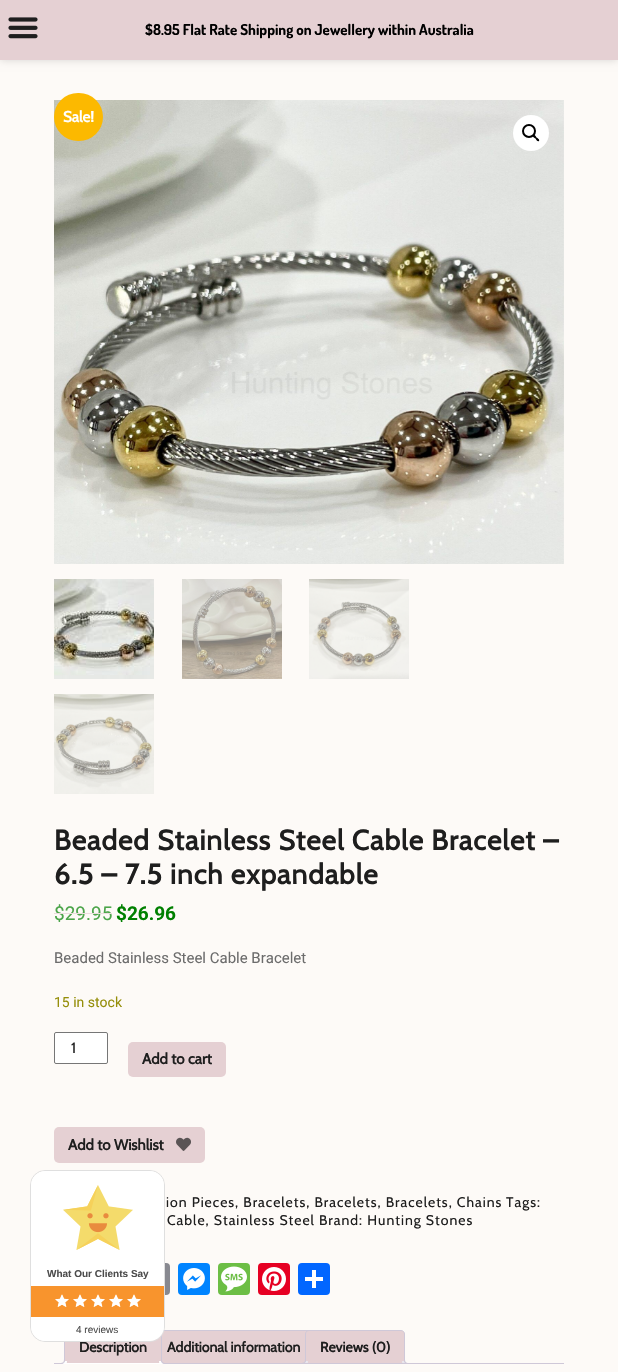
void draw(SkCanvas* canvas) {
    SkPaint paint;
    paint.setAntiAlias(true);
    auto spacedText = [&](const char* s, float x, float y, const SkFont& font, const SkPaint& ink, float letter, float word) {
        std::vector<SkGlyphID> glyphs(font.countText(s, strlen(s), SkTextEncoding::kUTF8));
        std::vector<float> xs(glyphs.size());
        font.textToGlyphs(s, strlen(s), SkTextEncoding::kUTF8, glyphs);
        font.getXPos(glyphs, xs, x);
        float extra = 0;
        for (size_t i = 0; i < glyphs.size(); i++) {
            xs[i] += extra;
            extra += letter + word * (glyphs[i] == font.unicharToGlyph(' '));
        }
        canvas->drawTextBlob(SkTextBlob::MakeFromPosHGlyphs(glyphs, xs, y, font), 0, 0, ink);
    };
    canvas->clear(0xFFFDFAF7);
    paint.setColor(0x26000000);
    paint.setMaskFilter(SkMaskFilter::MakeBlur(kNormal_SkBlurStyle, 4));
    canvas->drawRect(SkRect::MakeXYWH(0, 0, 618, 60), paint);
    paint.setMaskFilter(nullptr);
    paint.setColor(0xFFE5D0D3);
    canvas->drawRect(SkRect::MakeXYWH(0, 0, 618, 60), paint);
    canvas->drawImageRect(SkImages::DeferredFromEncodedData(SkData::MakeFromFileName("img1.png")), SkRect::MakeXYWH(8, 17, 30, 22), SkSamplingOptions());
    SkFont font1(fontMgr->matchFamilyStyle("Dosis", SkFontStyle::Bold()), 15);
    font1.setSubpixel(true);
    paint.setColor(0xFF000000);
    canvas->drawString("$8.95 Flat Rate Shipping on Jewellery within Australia", 145, 35, font1, paint);
    canvas->drawImageRect(SkImages::DeferredFromEncodedData(SkData::MakeFromFileName("img2.png")), SkRect::MakeXYWH(54, 100, 510, 464), SkSamplingOptions());
    paint.setColor(0xFFFFFFFF);
    canvas->drawCircle(531, 133, 18, paint);
    paint.setStyle(SkPaint::kStroke_Style);
    paint.setStrokeWidth(2);
    paint.setColor(0xFF000000);
    canvas->drawCircle(529, 131, 6, paint);
    paint.setStyle(SkPaint::kFill_Style);
    canvas->drawPath(SkPathBuilder().moveTo(533, 135).cubicTo(534.5f, 134, 536, 136.5f, 536.5f, 137.5f).cubicTo(537.5f, 138, 540, 139.5f, 539, 141).cubicTo(537.5f, 142, 536, 139.5f, 535.5f, 138.5f).cubicTo(534.5f, 138, 532, 136.5f, 533, 135).close().detach(), paint);
    canvas->drawImageRect(SkImages::DeferredFromEncodedData(SkData::MakeFromFileName("img3.png")), SkRect::MakeXYWH(54, 579, 100, 100), SkSamplingOptions());
    canvas->drawImageRect(SkImages::DeferredFromEncodedData(SkData::MakeFromFileName("img4.png")), SkRect::MakeXYWH(182, 579, 100, 100), SkSamplingOptions());
    canvas->drawImageRect(SkImages::DeferredFromEncodedData(SkData::MakeFromFileName("img5.png")), SkRect::MakeXYWH(309, 579, 100, 100), SkSamplingOptions());
    canvas->drawImageRect(SkImages::DeferredFromEncodedData(SkData::MakeFromFileName("img6.png")), SkRect::MakeXYWH(54, 694, 100, 100), SkSamplingOptions());
    paint.setColor(0xFFFCB900);
    canvas->drawRoundRect(SkRect::MakeXYWH(54, 93, 49, 48), 24, 24, paint);
    SkFont font2(fontMgr->matchFamilyStyle("Cabin", SkFontStyle::Bold()), 15);
    font2.setSubpixel(true);
    paint.setColor(0xFFFFFFFF);
    canvas->drawString("Sale!", 63, 122, font2, paint);
    SkFont font3(fontMgr->matchFamilyStyle("Cabin", SkFontStyle::Bold()), 28);
    font3.setSubpixel(true);
    paint.setColor(0xFF1E1E1E);
    spacedText("Beaded Stainless Steel Cable Bracelet –", 54, 850, font3, paint, 1, 0);
    spacedText("6.5 – 7.5 inch expandable", 54, 884, font3, paint, 1, 0);
    SkFont font4(fontMgr->matchFamilyStyle("Roboto", SkFontStyle::Normal()), 19);
    font4.setSubpixel(true);
    paint.setColor(0xFF4CA54A);
    canvas->drawString("$29.95", 54, 920, font4, paint);
    paint.setColor(0xFFECDDDE);
    canvas->drawRect(SkRect::MakeXYWH(54, 913, 58, 1), paint);
    SkFont font5(fontMgr->matchFamilyStyle("Roboto", SkFontStyle::Bold()), 19);
    font5.setSubpixel(true);
    paint.setColor(0xFF008000);
    canvas->drawString("$26.96", 116, 920, font5, paint);
    SkFont font6(fontMgr->matchFamilyStyle("Roboto", SkFontStyle::Normal()), 15);
    font6.setSubpixel(true);
    paint.setColor(0xFF6C6C6C);
    canvas->drawString("Beaded Stainless Steel Cable Bracelet", 54, 963, font6, paint);
    SkFont font7(fontMgr->matchFamilyStyle("Roboto", SkFontStyle::Normal()), 14);
    font7.setSubpixel(true);
    paint.setColor(0xFF958E09);
    canvas->drawString("15 in stock", 54, 1007, font7, paint);
    paint.setColor(0xFFFFFFFF);
    canvas->drawRoundRect(SkRect::MakeXYWH(54.5f, 1032.5f, 53, 31), 1.5f, 1.5f, paint);
    paint.setStyle(SkPaint::kStroke_Style);
    paint.setStrokeWidth(1);
    paint.setColor(0xFF767676);
    canvas->drawRoundRect(SkRect::MakeXYWH(54.5f, 1032.5f, 53, 31), 1.5f, 1.5f, paint);
    SkFont font8(fontMgr->matchFamilyStyle("Cabin", SkFontStyle::Normal()), 15);
    font8.setSubpixel(true);
    paint.setStyle(SkPaint::kFill_Style);
    paint.setColor(0xFF1E1E1E);
    canvas->drawString("1", 71, 1053, font8, paint);
    paint.setColor(0xFFE5D0D3);
    canvas->drawRoundRect(SkRect::MakeXYWH(128, 1042, 98, 35), 5, 5, paint);
    paint.setColor(0xFF1E1E1E);
    canvas->drawString("Add to cart", 142, 1064, font2, paint);
    paint.setColor(0xFFE5D0D3);
    canvas->drawRoundRect(SkRect::MakeXYWH(54, 1127, 151, 36), 5, 5, paint);
    paint.setColor(0xFF1E1E1E);
    canvas->drawString("Add to Wishlist", 68, 1150, font2, paint);
    canvas->drawImageRect(SkImages::DeferredFromEncodedData(SkData::MakeFromFileName("img7.png")), SkRect::MakeXYWH(176, 1137, 15, 14), SkSamplingOptions());
    SkFont font9(fontMgr->matchFamilyStyle("Cabin", SkFontStyle::Normal()), 14);
    font9.setSubpixel(true);
    spacedText("ion Pieces, Bracelets, Bracelets, Bracelets, Chains", 166, 1207, font9, paint, 1, 0);
    spacedText("Tags:", 506, 1207, font9, paint, 1, 0);
    spacedText("Cable, Stainless Steel", 167, 1225, font9, paint, 1, 0);
    spacedText("Brand: Hunting Stones", 319, 1225, font9, paint, 1, 0);
    paint.setColor(0xFF888990);
    canvas->drawRoundRect(SkRect::MakeXYWH(138, 1263, 32, 32), 4, 4, paint);
    paint.setColor(0xFF0084FF);
    canvas->drawRoundRect(SkRect::MakeXYWH(178, 1263, 32, 32), 4, 4, paint);
    canvas->drawImageRect(SkImages::DeferredFromEncodedData(SkData::MakeFromFileName("img8.png")), SkRect::MakeXYWH(183, 1268, 22, 22), SkSamplingOptions());
    paint.setColor(0xFF6CBE45);
    canvas->drawRoundRect(SkRect::MakeXYWH(218, 1263, 32, 32), 4, 4, paint);
    canvas->drawImageRect(SkImages::DeferredFromEncodedData(SkData::MakeFromFileName("img9.png")), SkRect::MakeXYWH(221, 1266, 26, 26), SkSamplingOptions());
    paint.setColor(0xFFE60023);
    canvas->drawRoundRect(SkRect::MakeXYWH(258, 1263, 32, 32), 4, 4, paint);
    canvas->drawImageRect(SkImages::DeferredFromEncodedData(SkData::MakeFromFileName("img10.png")), SkRect::MakeXYWH(262, 1267, 24, 24), SkSamplingOptions());
    paint.setColor(0xFF0166FF);
    canvas->drawRoundRect(SkRect::MakeXYWH(298, 1263, 32, 32), 4, 4, paint);
    paint.setColor(0xFFFFFFFF);
    canvas->drawRect(SkRect::MakeXYWH(312, 1270, 4, 18), paint);
    canvas->drawRect(SkRect::MakeXYWH(305, 1277, 18, 4), paint);
    paint.setColor(0xFFE5D0D3);
    canvas->drawRect(SkRect::MakeXYWH(162, 1331, 145, 32), paint);
    paint.setStyle(SkPaint::kStroke_Style);
    paint.setColor(0xFFCFC8D8);
    canvas->drawRect(SkRect::MakeXYWH(152.5f, 1330.5f, 162, 33), paint);
    paint.setStyle(SkPaint::kFill_Style);
    paint.setColor(0xFFE5D0D3);
    canvas->drawRect(SkRect::MakeXYWH(65, 1335, 96, 28), paint);
    canvas->drawPath(SkPathBuilder().moveTo(309, 1330.5f).lineTo(401, 1330.5f).cubicTo(403, 1330.5f, 404.5f, 1332, 404.5f, 1334).lineTo(404.5f, 1363.5f).lineTo(305.5f, 1363.5f).lineTo(305.5f, 1334).cubicTo(305.5f, 1332, 307, 1330.5f, 309, 1330.5f).close().detach(), paint);
    paint.setStyle(SkPaint::kStroke_Style);
    paint.setColor(0xFFCFC8D8);
    canvas->drawPath(SkPathBuilder().moveTo(309, 1330.5f).lineTo(401, 1330.5f).cubicTo(403, 1330.5f, 404.5f, 1332, 404.5f, 1334).lineTo(404.5f, 1363.5f).lineTo(305.5f, 1363.5f).lineTo(305.5f, 1334).cubicTo(305.5f, 1332, 307, 1330.5f, 309, 1330.5f).close().detach(), paint);
    canvas->save();
    canvas->clipRect(SkRect::MakeXYWH(54, 1330, 510, 34));
    paint.setStyle(SkPaint::kFill_Style);
    paint.setColor(0xFFE9E6ED);
    canvas->drawPath(SkPathBuilder().moveTo(303, 1364).lineTo(303, 1366).cubicTo(306.5f, 1366, 308, 1364.5f, 308, 1361).lineTo(306, 1361).cubicTo(305.5f, 1362.5f, 304.5f, 1363.5f, 303, 1364).close().detach(), paint);
    canvas->restore();
    paint.setColor(0xFFCFC8D8);
    canvas->drawPath(SkPathBuilder(SkPathFillType::kEvenOdd).moveTo(301, 1359).lineTo(306, 1359).cubicTo(306, 1362.5f, 304.5f, 1364, 301, 1364).close().moveTo(301, 1359).lineTo(305, 1359).cubicTo(305, 1362, 304, 1363, 301, 1363).close().detach(), paint);
    canvas->save();
    canvas->clipRect(SkRect::MakeXYWH(54, 1330, 510, 34));
    paint.setColor(0xFFE9E6ED);
    canvas->drawPath(SkPathBuilder().moveTo(402, 1361).cubicTo(402, 1364.5f, 403.5f, 1366, 407, 1366).lineTo(407, 1364).cubicTo(405.5f, 1363.5f, 404.5f, 1362.5f, 404, 1361).close().detach(), paint);
    canvas->restore();
    paint.setColor(0xFFCFC8D8);
    canvas->drawPath(SkPathBuilder(SkPathFillType::kEvenOdd).moveTo(404, 1359).lineTo(409, 1359).lineTo(409, 1364).cubicTo(406.5f, 1364, 404, 1363, 404, 1360).close().moveTo(405, 1359).lineTo(409, 1359).lineTo(409, 1363).cubicTo(407, 1363, 405, 1362.5f, 405, 1360).close().detach(), paint);
    canvas->drawRect(SkRect::MakeXYWH(54, 1363, 510, 1), paint);
    canvas->drawPath(SkPathBuilder().moveTo(162, 1364).lineTo(162, 1334).cubicTo(162, 1333, 161.5f, 1332, 161, 1331).lineTo(160, 1332).cubicTo(161, 1332, 161, 1333, 161, 1334).lineTo(161, 1363).close().detach(), paint);
    paint.setColor(0xFFFFFFFF);
    canvas->drawPath(SkPathBuilder().moveTo(162, 1364).lineTo(161, 1363).lineTo(65, 1363).lineTo(64, 1364).close().detach(), paint);
    paint.setColor(0xFFCFC8D8);
    canvas->drawPath(SkPathBuilder().moveTo(64, 1364).lineTo(65, 1363).lineTo(65, 1334).cubicTo(65, 1333, 65, 1332, 66, 1332).lineTo(65, 1331).cubicTo(64.5f, 1332, 64, 1333, 64, 1334).close().detach(), paint);
    SkFont font10(fontMgr->matchFamilyStyle("Cabin", SkFontStyle::Bold()), 14);
    font10.setSubpixel(true);
    paint.setColor(0xFF1E1E1E);
    canvas->drawString("Description", 79, 1352, font10, paint);
    canvas->save();
    canvas->clipRect(SkRect::MakeXYWH(54, 1330, 510, 34));
    paint.setColor(0xFFFFFFFF);
    canvas->drawPath(SkPathBuilder().moveTo(62, 1364).lineTo(62, 1366).cubicTo(65.5f, 1366, 67, 1364.5f, 67, 1361).lineTo(65, 1361).cubicTo(64.5f, 1362.5f, 63.5f, 1363.5f, 62, 1364).close().detach(), paint);
    canvas->restore();
    paint.setColor(0xFFCFC8D8);
    canvas->drawPath(SkPathBuilder(SkPathFillType::kEvenOdd).moveTo(60, 1359).lineTo(65, 1359).cubicTo(65, 1362.5f, 63.5f, 1364, 60, 1364).close().moveTo(60, 1359).lineTo(64, 1359).cubicTo(64, 1362, 63, 1363, 60, 1363).close().detach(), paint);
    canvas->save();
    canvas->clipRect(SkRect::MakeXYWH(54, 1330, 510, 34));
    paint.setColor(0xFFFFFFFF);
    canvas->drawPath(SkPathBuilder().moveTo(159, 1361).cubicTo(159, 1364.5f, 160.5f, 1366, 164, 1366).lineTo(164, 1364).cubicTo(162.5f, 1363.5f, 161.5f, 1362.5f, 161, 1361).close().detach(), paint);
    canvas->restore();
    paint.setColor(0xFFCFC8D8);
    canvas->drawPath(SkPathBuilder(SkPathFillType::kEvenOdd).moveTo(161, 1359).lineTo(166, 1359).lineTo(166, 1364).cubicTo(163.5f, 1364, 161, 1363, 161, 1360).close().moveTo(162, 1359).lineTo(166, 1359).lineTo(166, 1363).cubicTo(164, 1363, 162, 1362.5f, 162, 1360).close().detach(), paint);
    paint.setColor(0xFF1E1E1E);
    canvas->drawString("Additional information", 167, 1352, font10, paint);
    canvas->drawString("Reviews (0)", 320, 1352, font10, paint);
    paint.setStyle(SkPaint::kStroke_Style);
    paint.setColor(0xFFDFDFDF);
    canvas->drawRoundRect(SkRect::MakeXYWH(30.5f, 1170.5f, 134, 171), 14.5f, 14.5f, paint);
    paint.setStyle(SkPaint::kFill_Style);
    paint.setColor(0xFFFFFFFF);
    canvas->drawPath(SkPathBuilder().moveTo(45, 1171).lineTo(150, 1171).cubicTo(157.5f, 1171, 164, 1177.5f, 164, 1185).lineTo(164, 1286).lineTo(31, 1286).lineTo(31, 1185).cubicTo(31, 1177.5f, 37.5f, 1171, 45, 1171).close().detach(), paint);
    paint.setColor(0xFFF8942D);
    canvas->drawRect(SkRect::MakeXYWH(31, 1286, 133, 31), paint);
    paint.setColor(0xFFFFFFFF);
    canvas->drawPath(SkPathBuilder().moveTo(31, 1317).lineTo(164, 1317).lineTo(164, 1327).cubicTo(164, 1334.5f, 157.5f, 1341, 150, 1341).lineTo(45, 1341).cubicTo(37.5f, 1341, 31, 1334.5f, 31, 1327).close().detach(), paint);
    canvas->drawImageRect(SkImages::DeferredFromEncodedData(SkData::MakeFromFileName("img11.png")), SkRect::MakeXYWH(63, 1185, 70, 65), SkSamplingOptions());
    SkFont font11(fontMgr->matchFamilyStyle("Liberation Sans", SkFontStyle::Bold()), 10);
    font11.setSubpixel(true);
    paint.setColor(0xFF4C4C4C);
    canvas->drawString("What Our Clients Say", 47, 1277, font11, paint);
    canvas->drawImageRect(SkImages::DeferredFromEncodedData(SkData::MakeFromFileName("img12.png")), SkRect::MakeXYWH(55, 1294, 14, 13), SkSamplingOptions());
    canvas->drawImageRect(SkImages::DeferredFromEncodedData(SkData::MakeFromFileName("img13.png")), SkRect::MakeXYWH(55, 1294, 14, 13), SkSamplingOptions());
    canvas->drawImageRect(SkImages::DeferredFromEncodedData(SkData::MakeFromFileName("img12.png")), SkRect::MakeXYWH(73, 1294, 14, 13), SkSamplingOptions());
    canvas->drawImageRect(SkImages::DeferredFromEncodedData(SkData::MakeFromFileName("img13.png")), SkRect::MakeXYWH(73, 1294, 14, 13), SkSamplingOptions());
    canvas->drawImageRect(SkImages::DeferredFromEncodedData(SkData::MakeFromFileName("img12.png")), SkRect::MakeXYWH(91, 1294, 14, 13), SkSamplingOptions());
    canvas->drawImageRect(SkImages::DeferredFromEncodedData(SkData::MakeFromFileName("img13.png")), SkRect::MakeXYWH(91, 1294, 14, 13), SkSamplingOptions());
    canvas->drawImageRect(SkImages::DeferredFromEncodedData(SkData::MakeFromFileName("img12.png")), SkRect::MakeXYWH(109, 1294, 14, 13), SkSamplingOptions());
    canvas->drawImageRect(SkImages::DeferredFromEncodedData(SkData::MakeFromFileName("img13.png")), SkRect::MakeXYWH(109, 1294, 14, 13), SkSamplingOptions());
    canvas->drawImageRect(SkImages::DeferredFromEncodedData(SkData::MakeFromFileName("img12.png")), SkRect::MakeXYWH(127, 1294, 14, 13), SkSamplingOptions());
    canvas->drawImageRect(SkImages::DeferredFromEncodedData(SkData::MakeFromFileName("img13.png")), SkRect::MakeXYWH(127, 1294, 14, 13), SkSamplingOptions());
    SkFont font12(fontMgr->matchFamilyStyle("Liberation Sans", SkFontStyle::Normal()), 10);
    font12.setSubpixel(true);
    canvas->drawString("4 reviews", 76, 1333, font12, paint);
}
